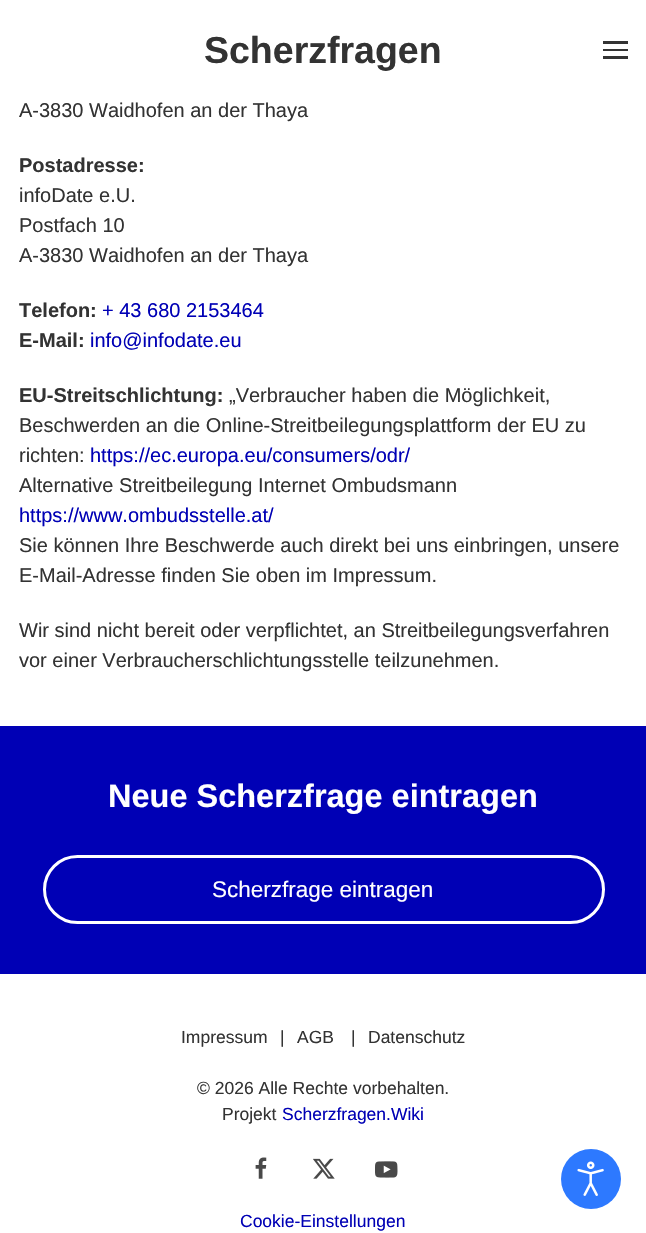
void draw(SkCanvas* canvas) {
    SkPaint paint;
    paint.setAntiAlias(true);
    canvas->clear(0xFFFFFFFF);
    SkFont font1(fontMgr->matchFamilyStyle("Liberation Sans", SkFontStyle::Bold()), 37.5f);
    font1.setSubpixel(true);
    paint.setColor(0xFF333333);
    canvas->drawString("Scherzfragen", 204, 63, font1, paint);
    canvas->drawRect(SkRect::MakeXYWH(603, 41, 25, 3), paint);
    canvas->drawRect(SkRect::MakeXYWH(603, 49, 25, 2), paint);
    canvas->drawRect(SkRect::MakeXYWH(603, 56, 25, 3), paint);
    SkFont font2(fontMgr->matchFamilyStyle("Liberation Sans", SkFontStyle::Normal()), 20);
    font2.setSubpixel(true);
    canvas->drawString("A-3830 Waidhofen an der Thaya", 19, 117, font2, paint);
    SkFont font3(fontMgr->matchFamilyStyle("Liberation Sans", SkFontStyle::Bold()), 20);
    font3.setSubpixel(true);
    canvas->drawString("Postadresse:", 19, 172, font3, paint);
    canvas->drawString("infoDate e.U.", 19, 202, font2, paint);
    canvas->drawString("Postfach 10", 19, 232, font2, paint);
    canvas->drawString("A-3830 Waidhofen an der Thaya", 19, 262, font2, paint);
    canvas->drawString("Telefon:", 19, 317, font3, paint);
    paint.setColor(0xFF0000B5);
    canvas->drawString("+ 43 680 2153464", 102, 317, font2, paint);
    paint.setColor(0xFF333333);
    canvas->drawString("E-Mail:", 19, 347, font3, paint);
    paint.setColor(0xFF0000B5);
    canvas->drawString("info@infodate.eu", 90, 347, font2, paint);
    paint.setColor(0xFF333333);
    canvas->drawString("EU-Streitschlichtung:", 19, 402, font3, paint);
    canvas->drawString("„Verbraucher haben die Möglichkeit,", 229, 402, font2, paint);
    canvas->drawString("Beschwerden an die Online-Streitbeilegungsplattform der EU zu", 19, 432, font2, paint);
    canvas->drawString("richten:", 19, 462, font2, paint);
    paint.setColor(0xFF0000B5);
    canvas->drawString("https://ec.europa.eu/consumers/odr/", 90, 462, font2, paint);
    paint.setColor(0xFF333333);
    canvas->drawString("Alternative Streitbeilegung Internet Ombudsmann", 19, 492, font2, paint);
    paint.setColor(0xFF0000B5);
    canvas->drawString("https://www.ombudsstelle.at/", 19, 522, font2, paint);
    paint.setColor(0xFF333333);
    canvas->drawString("Sie können Ihre Beschwerde auch direkt bei uns einbringen, unsere", 19, 552, font2, paint);
    canvas->drawString("E-Mail-Adresse finden Sie oben im Impressum.", 19, 582, font2, paint);
    canvas->drawString("Wir sind nicht bereit oder verpflichtet, an Streitbeilegungsverfahren", 19, 637, font2, paint);
    canvas->drawString("vor einer Verbraucherschlichtungsstelle teilzunehmen.", 19, 667, font2, paint);
    paint.setColor(0xFF0000B5);
    canvas->drawRect(SkRect::MakeXYWH(0, 726, 646, 248), paint);
    SkFont font4(fontMgr->matchFamilyStyle("Liberation Sans", SkFontStyle::Bold()), 32.5f);
    font4.setSubpixel(true);
    paint.setColor(0xFFFFFFFF);
    canvas->drawString("Neue Scherzfrage eintragen", 108, 807, font4, paint);
    paint.setStyle(SkPaint::kStroke_Style);
    paint.setStrokeWidth(3);
    canvas->drawRoundRect(SkRect::MakeXYWH(44.5f, 856.5f, 559, 66), 33, 33, paint);
    SkFont font5(fontMgr->matchFamilyStyle("Liberation Sans", SkFontStyle::Normal()), 22.5f);
    font5.setSubpixel(true);
    paint.setStyle(SkPaint::kFill_Style);
    canvas->drawString("Scherzfrage eintragen", 212, 897, font5, paint);
    SkFont font6(fontMgr->matchFamilyStyle("Liberation Sans", SkFontStyle::Normal()), 17.5f);
    font6.setSubpixel(true);
    paint.setColor(0xFF333333);
    canvas->drawString("Impressum", 181, 1043, font6, paint);
    canvas->drawString("|", 280, 1043, font6, paint);
    canvas->drawString("AGB", 297, 1043, font6, paint);
    canvas->drawString("|", 351, 1043, font6, paint);
    canvas->drawString("Datenschutz", 368, 1043, font6, paint);
    canvas->drawString("© 2026 Alle Rechte vorbehalten.", 197, 1094, font6, paint);
    canvas->drawString("Projekt", 222, 1120, font6, paint);
    paint.setColor(0xFF0000B5);
    canvas->drawString("Scherzfragen.Wiki", 282, 1120, font6, paint);
    canvas->drawImageRect(SkImages::DeferredFromEncodedData(SkData::MakeFromFileName("img1.png")), SkRect::MakeXYWH(255, 1157, 12, 22), SkSamplingOptions());
    canvas->drawImageRect(SkImages::DeferredFromEncodedData(SkData::MakeFromFileName("img2.png")), SkRect::MakeXYWH(313, 1158, 22, 21), SkSamplingOptions());
    canvas->drawImageRect(SkImages::DeferredFromEncodedData(SkData::MakeFromFileName("img3.png")), SkRect::MakeXYWH(375, 1161, 23, 17), SkSamplingOptions());
    canvas->drawString("Cookie-Einstellungen", 240, 1227, font6, paint);
    paint.setColor(0xFF2D79FF);
    canvas->drawCircle(591, 1179, 30, paint);
    canvas->drawImageRect(SkImages::DeferredFromEncodedData(SkData::MakeFromFileName("img4.png")), SkRect::MakeXYWH(577, 1161, 27, 35), SkSamplingOptions());
}
